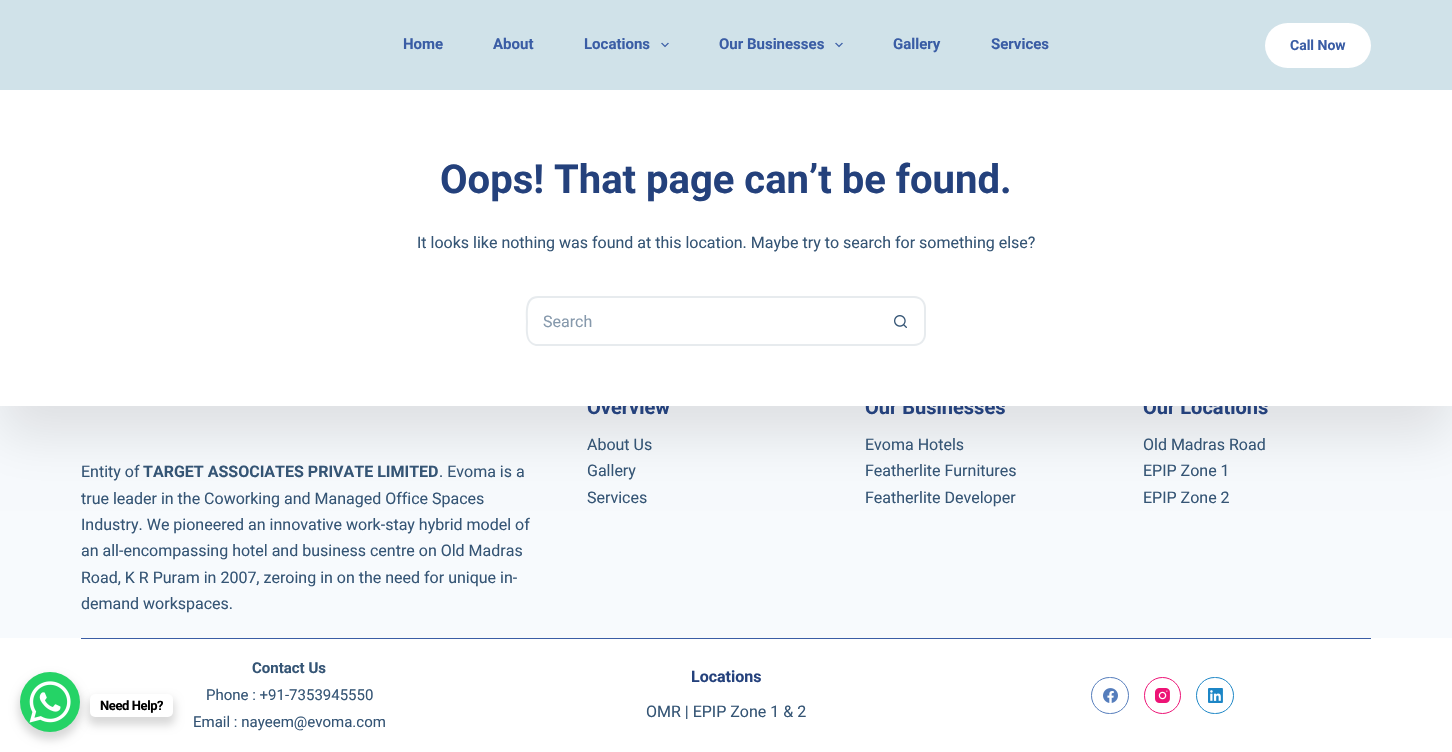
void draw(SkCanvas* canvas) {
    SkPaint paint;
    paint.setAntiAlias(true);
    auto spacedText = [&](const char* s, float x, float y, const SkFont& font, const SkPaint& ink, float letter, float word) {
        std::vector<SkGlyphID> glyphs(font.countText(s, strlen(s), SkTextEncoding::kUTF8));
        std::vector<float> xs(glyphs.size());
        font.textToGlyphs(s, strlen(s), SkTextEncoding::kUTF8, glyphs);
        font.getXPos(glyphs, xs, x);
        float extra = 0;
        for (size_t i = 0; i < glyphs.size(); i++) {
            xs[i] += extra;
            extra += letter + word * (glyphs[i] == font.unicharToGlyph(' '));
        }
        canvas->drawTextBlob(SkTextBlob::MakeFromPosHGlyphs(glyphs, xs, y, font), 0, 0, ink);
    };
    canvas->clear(0xFFF7FAFD);
    paint.setColor(0x1A000000);
    paint.setMaskFilter(SkMaskFilter::MakeBlur(kNormal_SkBlurStyle, 25));
    canvas->drawRect(SkRect::MakeXYWH(0, 120, 1452, 316), paint);
    paint.setMaskFilter(nullptr);
    paint.setColor(0xFFD0E2E9);
    canvas->drawRect(SkRect::MakeXYWH(0, 0, 1452, 90), paint);
    SkFont font1(fontMgr->matchFamilyStyle("Roboto", SkFontStyle::Bold()), 15);
    font1.setSubpixel(true);
    paint.setColor(0xFF3A5DA5);
    canvas->drawString("Home", 403, 49, font1, paint);
    canvas->drawString("About", 493, 49, font1, paint);
    canvas->drawString("Locations", 584, 49, font1, paint);
    canvas->drawImageRect(SkImages::DeferredFromEncodedData(SkData::MakeFromFileName("img1.png")), SkRect::MakeXYWH(661, 42, 8, 6), SkSamplingOptions());
    canvas->drawString("Our Businesses", 719, 49, font1, paint);
    canvas->drawImageRect(SkImages::DeferredFromEncodedData(SkData::MakeFromFileName("img1.png")), SkRect::MakeXYWH(835, 42, 8, 6), SkSamplingOptions());
    canvas->drawString("Gallery", 893, 49, font1, paint);
    canvas->drawString("Services", 991, 49, font1, paint);
    paint.setColor(0xFFFFFFFF);
    canvas->drawRoundRect(SkRect::MakeXYWH(1265, 23, 106, 45), 22.5f, 22.5f, paint);
    SkFont font2(fontMgr->matchFamilyStyle("Roboto", SkFontStyle::Bold()), 14);
    font2.setSubpixel(true);
    paint.setColor(0xFF3A5DA5);
    canvas->drawString("Call Now", 1290, 50, font2, paint);
    SkFont font3(fontMgr->matchFamilyStyle("Roboto", SkFontStyle::Bold()), 20);
    font3.setSubpixel(true);
    paint.setColor(0xFF24417C);
    canvas->drawString("Overview", 587, 414, font3, paint);
    canvas->drawString("Our Businesses", 865, 414, font3, paint);
    canvas->drawString("Our Locations", 1143, 414, font3, paint);
    paint.setColor(0xFFFFFFFF);
    canvas->drawRect(SkRect::MakeXYWH(0, 90, 1452, 316), paint);
    SkFont font4(fontMgr->matchFamilyStyle("Roboto", SkFontStyle::Bold()), 40);
    font4.setSubpixel(true);
    paint.setColor(0xFF24417C);
    canvas->drawString("Oops! That page can’t be found.", 440, 193, font4, paint);
    SkFont font5(fontMgr->matchFamilyStyle("Roboto", SkFontStyle::Normal()), 16);
    font5.setSubpixel(true);
    paint.setColor(0xFF355575);
    canvas->drawString("It looks like nothing was found at this location. Maybe try to search for something else?", 417, 248, font5, paint);
    paint.setColor(0xFFE7EBEE);
    canvas->drawPath(SkPathBuilder(SkPathFillType::kEvenOdd).moveTo(538, 296).lineTo(876, 296).lineTo(876, 346).lineTo(536, 346).cubicTo(524, 343, 526, 330, 526, 321).cubicTo(526, 312, 524, 296, 538, 296).close().moveTo(538, 298).lineTo(876, 298).lineTo(876, 344).lineTo(536, 344).cubicTo(526, 342, 528, 329, 528, 321).cubicTo(528, 313, 526, 298, 538, 298).close().detach(), paint);
    paint.setColor(0xFF8699AC);
    canvas->drawString("Search", 543, 327, font5, paint);
    paint.setColor(0xFFE7EBEE);
    canvas->drawPath(SkPathBuilder(SkPathFillType::kEvenOdd).moveTo(876, 296).lineTo(914, 296).cubicTo(921, 296, 926, 301, 926, 308).lineTo(926, 334).cubicTo(926, 341, 921, 346, 914, 346).lineTo(876, 346).close().moveTo(876, 298).lineTo(914, 298).cubicTo(920, 298, 924, 302, 924, 308).lineTo(924, 334).cubicTo(924, 340, 920, 344, 914, 344).lineTo(876, 344).close().detach(), paint);
    canvas->drawImageRect(SkImages::DeferredFromEncodedData(SkData::MakeFromFileName("img2.png")), SkRect::MakeXYWH(894, 315, 13, 13), SkSamplingOptions());
    paint.setColor(0xFF355575);
    canvas->drawString("About Us", 587, 450, font5, paint);
    canvas->drawString("Gallery", 587, 476, font5, paint);
    canvas->drawString("Services", 587, 503, font5, paint);
    canvas->drawString("Evoma Hotels", 865, 450, font5, paint);
    canvas->drawString("Featherlite Furnitures", 865, 476, font5, paint);
    canvas->drawString("Featherlite Developer", 865, 503, font5, paint);
    canvas->drawString("Old Madras Road", 1143, 450, font5, paint);
    canvas->drawString("EPIP Zone 1", 1143, 476, font5, paint);
    canvas->drawString("EPIP Zone 2", 1143, 503, font5, paint);
    canvas->drawString("Entity of", 81, 477, font5, paint);
    SkFont font6(fontMgr->matchFamilyStyle("Roboto", SkFontStyle::Bold()), 16);
    font6.setSubpixel(true);
    canvas->drawString("TARGET ASSOCIATES PRIVATE LIMITED", 143, 477, font6, paint);
    canvas->drawString(". Evoma is a", 439, 477, font5, paint);
    canvas->drawString("true leader in the Coworking and Managed Office Spaces", 81, 504, font5, paint);
    canvas->drawString("Industry. We pioneered an innovative work-stay hybrid model of", 81, 530, font5, paint);
    canvas->drawString("an all-encompassing hotel and business centre on Old Madras", 81, 556, font5, paint);
    canvas->drawString("Road, K R Puram in 2007, zeroing in on the need for unique in-", 81, 583, font5, paint);
    canvas->drawString("demand workspaces.", 81, 609, font5, paint);
    paint.setColor(0xFFFFFFFF);
    canvas->drawRect(SkRect::MakeXYWH(0, 638, 1452, 114), paint);
    paint.setColor(0xFF3A5DA5);
    canvas->drawRect(SkRect::MakeXYWH(81, 638, 1290, 1), paint);
    paint.setColor(0xFF355575);
    canvas->drawString("Contact Us", 252, 673, font1, paint);
    SkFont font7(fontMgr->matchFamilyStyle("Roboto", SkFontStyle::Normal()), 15);
    font7.setSubpixel(true);
    canvas->drawString("Phone : +91-7353945550", 206, 700, font7, paint);
    canvas->drawString("Email : nayeem@evoma.com", 193, 727, font7, paint);
    paint.setColor(0xFF24417C);
    canvas->drawString("Locations", 691, 682, font6, paint);
    paint.setColor(0xFF355575);
    canvas->drawString("OMR | EPIP Zone 1 & 2", 646, 717, font5, paint);
    paint.setStyle(SkPaint::kStroke_Style);
    paint.setStrokeWidth(1);
    paint.setColor(0xFF557DBC);
    canvas->drawRoundRect(SkRect::MakeXYWH(1091.5f, 677.5f, 37, 36), 18, 18, paint);
    canvas->drawImageRect(SkImages::DeferredFromEncodedData(SkData::MakeFromFileName("img3.png")), SkRect::MakeXYWH(1103, 688, 15, 15), SkSamplingOptions());
    paint.setColor(0xFFED1376);
    canvas->drawCircle(1162.5f, 695.5f, 18, paint);
    canvas->drawImageRect(SkImages::DeferredFromEncodedData(SkData::MakeFromFileName("img4.png")), SkRect::MakeXYWH(1155, 688, 15, 15), SkSamplingOptions());
    paint.setColor(0xFF1C86C6);
    canvas->drawRoundRect(SkRect::MakeXYWH(1196.5f, 677.5f, 37, 36), 18, 18, paint);
    canvas->drawImageRect(SkImages::DeferredFromEncodedData(SkData::MakeFromFileName("img5.png")), SkRect::MakeXYWH(1208, 688, 15, 15), SkSamplingOptions());
    paint.setStyle(SkPaint::kFill_Style);
    paint.setColor(0x26000000);
    paint.setMaskFilter(SkMaskFilter::MakeBlur(kNormal_SkBlurStyle, 4));
    canvas->drawRoundRect(SkRect::MakeXYWH(18, 676, 64, 64), 32, 32, paint);
    paint.setMaskFilter(nullptr);
    paint.setColor(0xFF25D366);
    canvas->drawCircle(50, 702, 30, paint);
    canvas->drawImageRect(SkImages::DeferredFromEncodedData(SkData::MakeFromFileName("img6.png")), SkRect::MakeXYWH(29, 681, 42, 42), SkSamplingOptions());
    paint.setColor(0x26000000);
    paint.setMaskFilter(SkMaskFilter::MakeBlur(kNormal_SkBlurStyle, 4));
    canvas->drawRoundRect(SkRect::MakeXYWH(88, 698, 87, 27), 7, 7, paint);
    paint.setMaskFilter(nullptr);
    paint.setColor(0xFFFFFFFF);
    canvas->drawRoundRect(SkRect::MakeXYWH(90, 694, 83, 23), 5, 5, paint);
    SkFont font8(fontMgr->matchFamilyStyle("Roboto", SkFontStyle::Bold()), 13);
    font8.setSubpixel(true);
    paint.setColor(0xFF000000);
    spacedText("Need Help?", 100, 710, font8, paint, -0.4f, 0);
}
